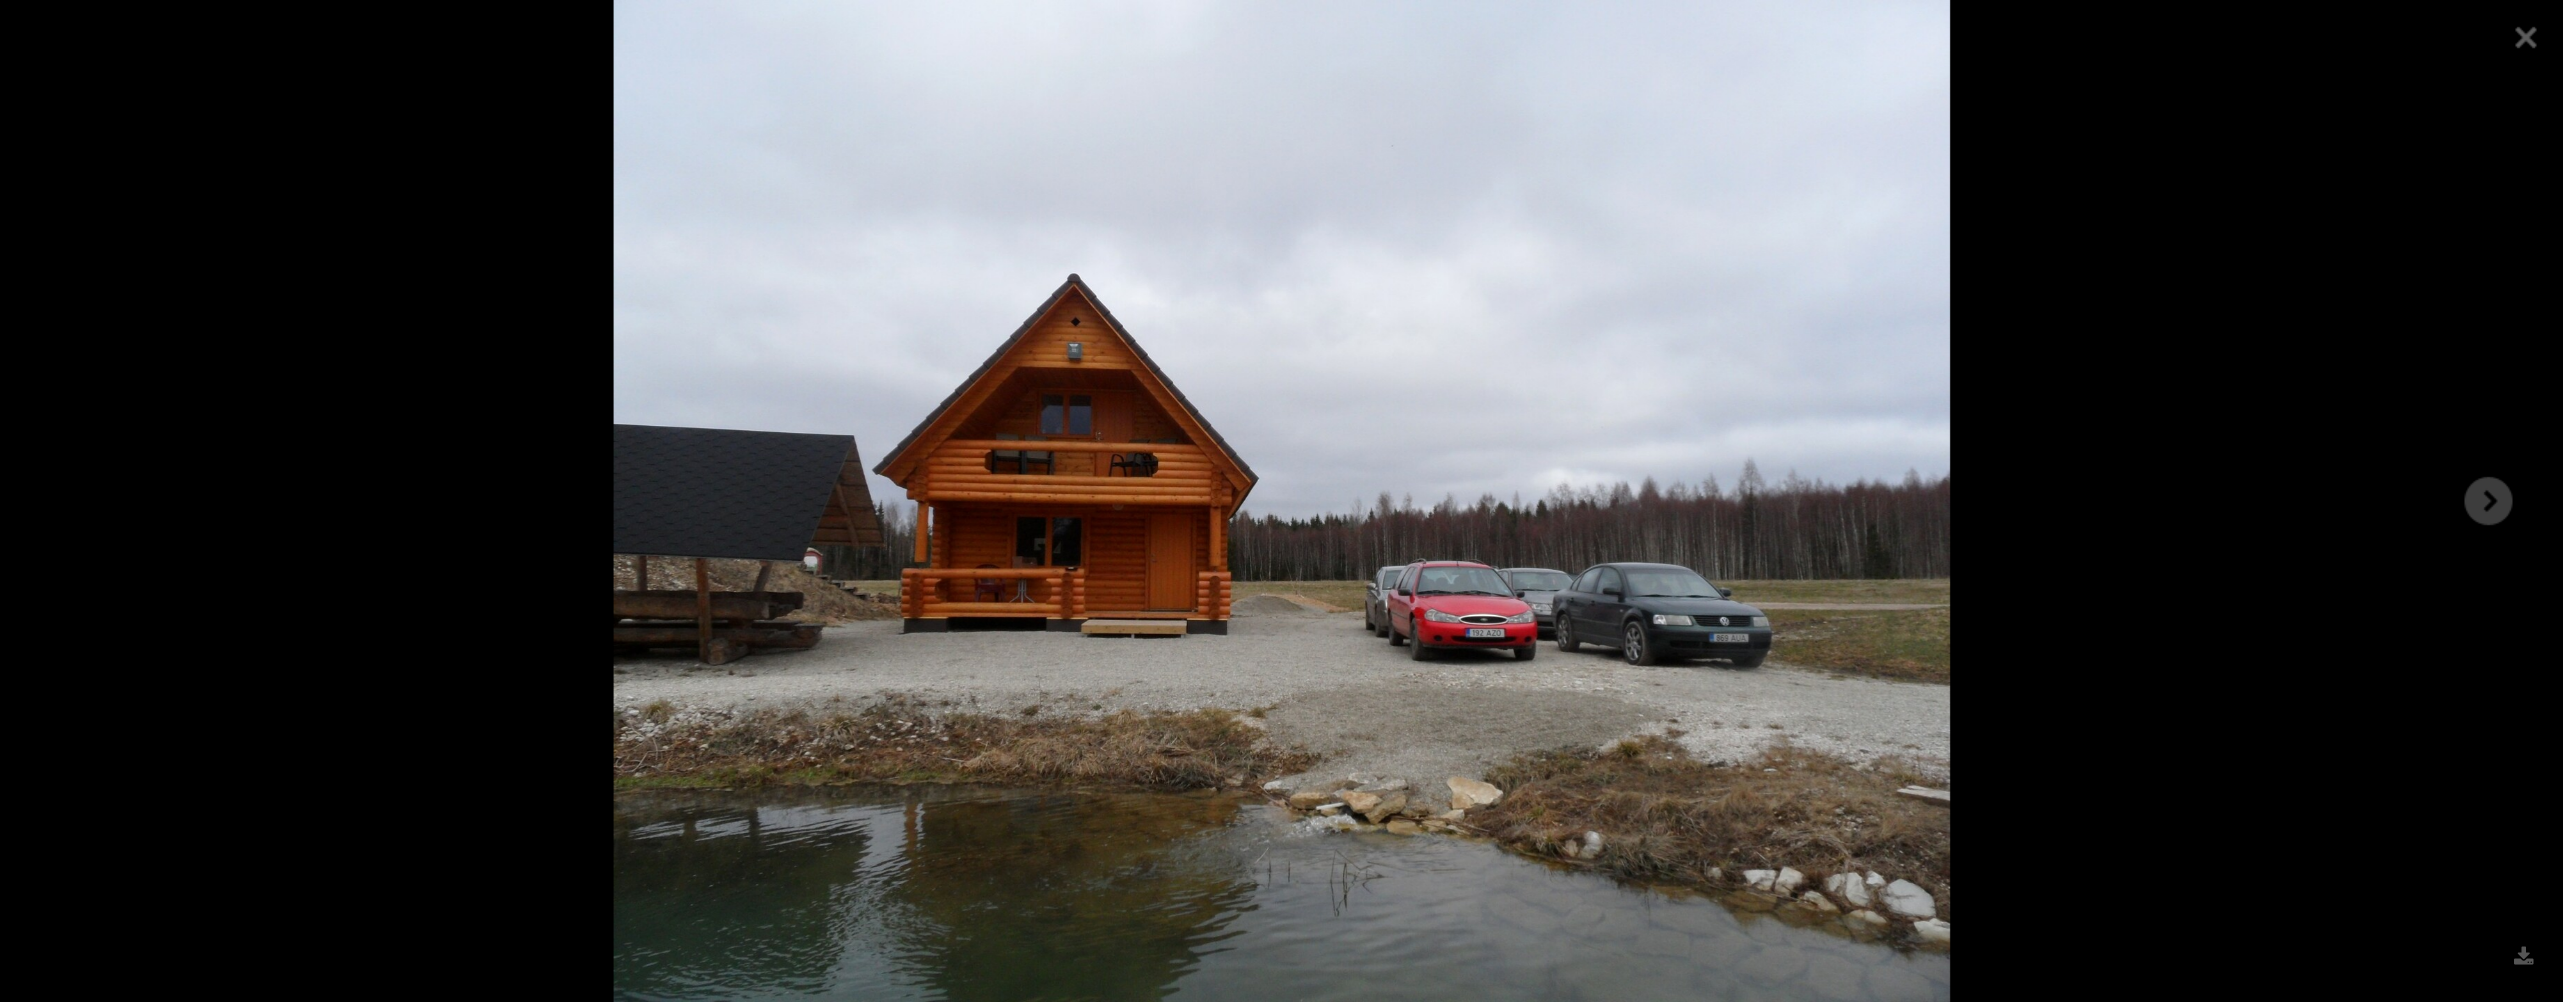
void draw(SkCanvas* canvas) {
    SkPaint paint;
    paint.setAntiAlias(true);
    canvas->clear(0xFF000000);
    canvas->drawImageRect(SkImages::DeferredFromEncodedData(SkData::MakeFromFileName("img1.png")), SkRect::MakeXYWH(613, 0, 1338, 1002), SkSamplingOptions());
    canvas->drawImageRect(SkImages::DeferredFromEncodedData(SkData::MakeFromFileName("img2.png")), SkRect::MakeXYWH(2515, 26, 22, 23), SkSamplingOptions());
    canvas->drawImageRect(SkImages::DeferredFromEncodedData(SkData::MakeFromFileName("img3.png")), SkRect::MakeXYWH(2464, 476, 49, 50), SkSamplingOptions());
    canvas->drawImageRect(SkImages::DeferredFromEncodedData(SkData::MakeFromFileName("img4.png")), SkRect::MakeXYWH(2514, 946, 20, 19), SkSamplingOptions());
}
